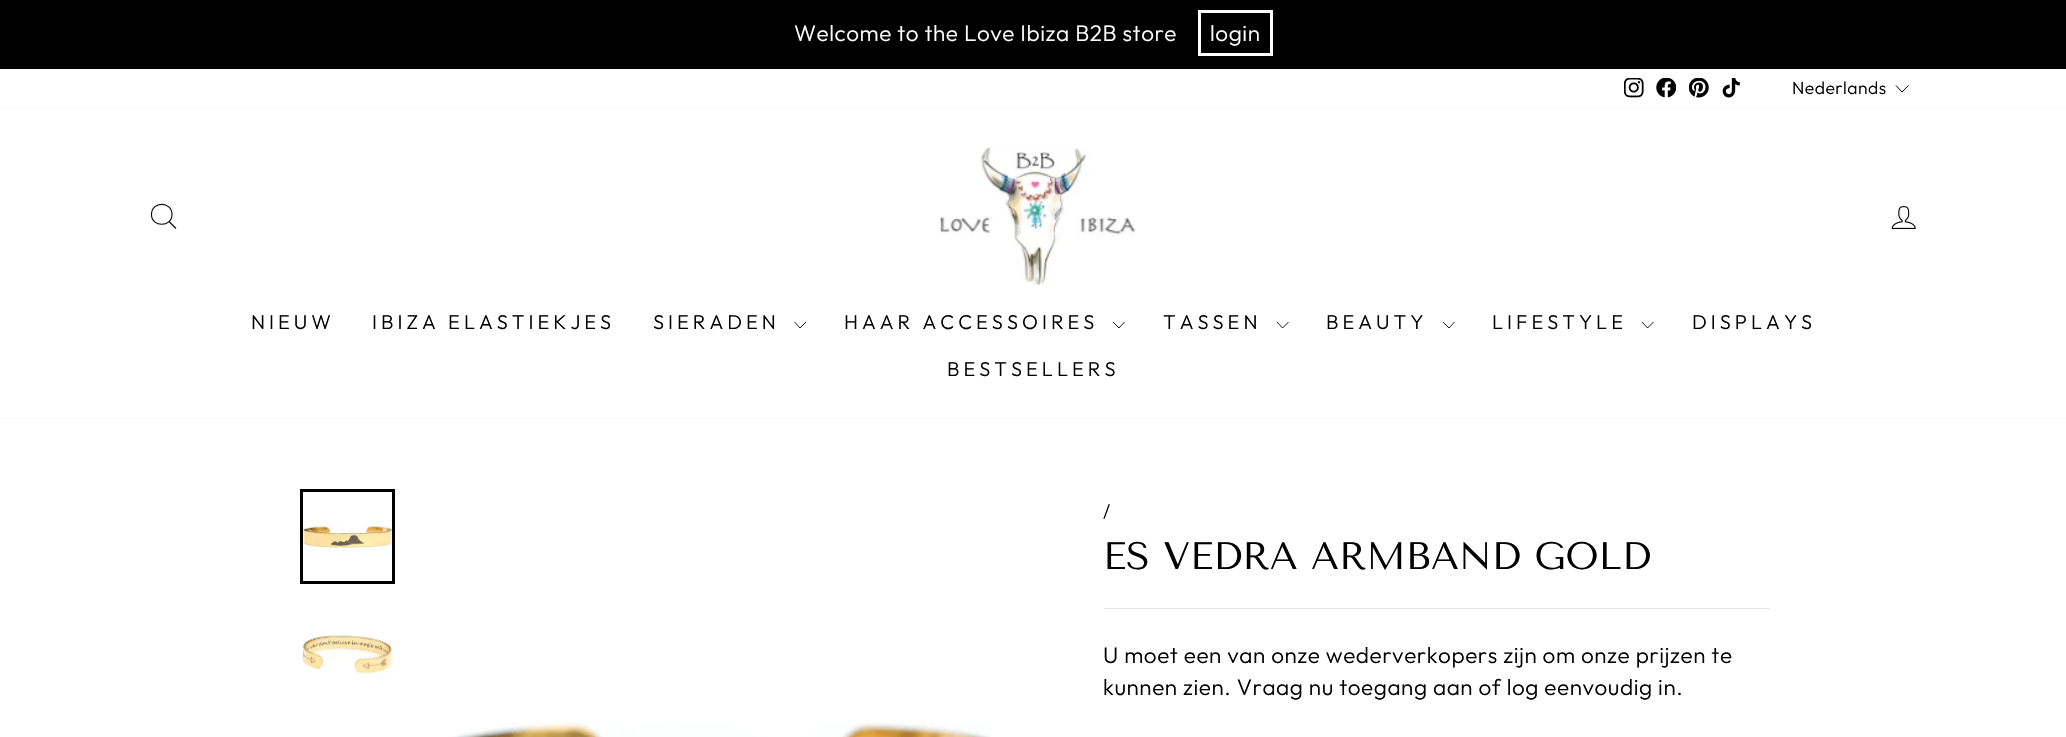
void draw(SkCanvas* canvas) {
    SkPaint paint;
    paint.setAntiAlias(true);
    auto spacedText = [&](const char* s, float x, float y, const SkFont& font, const SkPaint& ink, float letter, float word) {
        std::vector<SkGlyphID> glyphs(font.countText(s, strlen(s), SkTextEncoding::kUTF8));
        std::vector<float> xs(glyphs.size());
        font.textToGlyphs(s, strlen(s), SkTextEncoding::kUTF8, glyphs);
        font.getXPos(glyphs, xs, x);
        float extra = 0;
        for (size_t i = 0; i < glyphs.size(); i++) {
            xs[i] += extra;
            extra += letter + word * (glyphs[i] == font.unicharToGlyph(' '));
        }
        canvas->drawTextBlob(SkTextBlob::MakeFromPosHGlyphs(glyphs, xs, y, font), 0, 0, ink);
    };
    canvas->clear(0xFFFFFFFF);
    paint.setColor(0xFF000000);
    canvas->drawRect(SkRect::MakeXYWH(0, 0, 2066, 69), paint);
    SkFont font1(fontMgr->matchFamilyStyle("Outfit", SkFontStyle(300, SkFontStyle::kNormal_Width, SkFontStyle::kUpright_Slant)), 22.5f);
    font1.setSubpixel(true);
    paint.setColor(0xFFFFFFFF);
    spacedText("Welcome to the Love Ibiza B2B store", 794, 41, font1, paint, 0.55f, 0);
    paint.setStyle(SkPaint::kStroke_Style);
    paint.setStrokeWidth(3);
    canvas->drawRect(SkRect::MakeXYWH(1199.5f, 11.5f, 72, 43), paint);
    paint.setStyle(SkPaint::kFill_Style);
    spacedText("login", 1210, 41, font1, paint, 0.55f, 0);
    canvas->drawImageRect(SkImages::DeferredFromEncodedData(SkData::MakeFromFileName("img1.png")), SkRect::MakeXYWH(1624, 78, 20, 20), SkSamplingOptions());
    canvas->drawImageRect(SkImages::DeferredFromEncodedData(SkData::MakeFromFileName("img2.png")), SkRect::MakeXYWH(1656, 78, 20, 20), SkSamplingOptions());
    canvas->drawImageRect(SkImages::DeferredFromEncodedData(SkData::MakeFromFileName("img3.png")), SkRect::MakeXYWH(1689, 78, 20, 20), SkSamplingOptions());
    canvas->drawImageRect(SkImages::DeferredFromEncodedData(SkData::MakeFromFileName("img4.png")), SkRect::MakeXYWH(1722, 78, 18, 20), SkSamplingOptions());
    SkFont font2(fontMgr->matchFamilyStyle("Outfit", SkFontStyle(300, SkFontStyle::kNormal_Width, SkFontStyle::kUpright_Slant)), 17.5f);
    font2.setSubpixel(true);
    paint.setColor(0xFF000000);
    spacedText("Nederlands", 1792, 94, font2, paint, 0.5f, 0);
    paint.setStyle(SkPaint::kStroke_Style);
    paint.setStrokeWidth(1);
    canvas->drawPath(SkPathBuilder().moveTo(1896, 85.5f).lineTo(1902, 92).lineTo(1908.5f, 85.5f).detach(), paint);
    paint.setStyle(SkPaint::kFill_Style);
    paint.setColor(0x33000000);
    paint.setMaskFilter(SkMaskFilter::MakeBlur(kNormal_SkBlurStyle, 0.5f));
    canvas->drawRect(SkRect::MakeXYWH(0, 108, 2066, 310), paint);
    paint.setMaskFilter(nullptr);
    paint.setColor(0xFFFFFFFF);
    canvas->drawRect(SkRect::MakeXYWH(0, 108, 2066, 310), paint);
    paint.setStyle(SkPaint::kStroke_Style);
    paint.setStrokeWidth(1.1f);
    paint.setColor(0xFF000000);
    canvas->drawPath(SkPathBuilder().moveTo(172, 214.5f).cubicTo(172, 227.5f, 151.5f, 227.5f, 151.5f, 214.5f).cubicTo(151.5f, 201, 172, 201, 172, 214.5f).close().moveTo(176, 228.5f).lineTo(169, 221.5f).detach(), paint);
    canvas->drawImageRect(SkImages::DeferredFromEncodedData(SkData::MakeFromFileName("img5.png")), SkRect::MakeXYWH(939, 146, 197, 140), SkSamplingOptions());
    canvas->drawImageRect(SkImages::DeferredFromEncodedData(SkData::MakeFromFileName("img6.png")), SkRect::MakeXYWH(1891, 206, 25, 23), SkSamplingOptions());
    SkFont font3(fontMgr->matchFamilyStyle("Outfit", SkFontStyle(300, SkFontStyle::kNormal_Width, SkFontStyle::kUpright_Slant)), 20);
    font3.setSubpixel(true);
    paint.setStyle(SkPaint::kFill_Style);
    spacedText("NIEUW", 251, 329, font3, paint, 4, 0);
    spacedText("IBIZA ELASTIEKJES", 372, 329, font3, paint, 4, 0);
    spacedText("SIERADEN", 653, 329, font3, paint, 4, 0);
    paint.setStyle(SkPaint::kStroke_Style);
    paint.setStrokeWidth(0.9f);
    canvas->drawPath(SkPathBuilder().moveTo(794.5f, 322).lineTo(800, 328).lineTo(806, 322).detach(), paint);
    paint.setStyle(SkPaint::kFill_Style);
    spacedText("HAAR ACCESSOIRES", 844, 329, font3, paint, 4, 0);
    paint.setStyle(SkPaint::kStroke_Style);
    canvas->drawPath(SkPathBuilder().moveTo(1113, 322).lineTo(1119, 328).lineTo(1124.5f, 322).detach(), paint);
    paint.setStyle(SkPaint::kFill_Style);
    spacedText("TASSEN", 1163, 329, font3, paint, 4, 0);
    paint.setStyle(SkPaint::kStroke_Style);
    canvas->drawPath(SkPathBuilder().moveTo(1277, 322).lineTo(1282.5f, 328).lineTo(1288.5f, 322).detach(), paint);
    paint.setStyle(SkPaint::kFill_Style);
    spacedText("BEAUTY", 1326, 329, font3, paint, 4, 0);
    paint.setStyle(SkPaint::kStroke_Style);
    canvas->drawPath(SkPathBuilder().moveTo(1443, 322).lineTo(1449, 328).lineTo(1454.5f, 322).detach(), paint);
    paint.setStyle(SkPaint::kFill_Style);
    spacedText("LIFESTYLE", 1492, 329, font3, paint, 4, 0);
    paint.setStyle(SkPaint::kStroke_Style);
    canvas->drawPath(SkPathBuilder().moveTo(1642, 322).lineTo(1647.5f, 328).lineTo(1653.5f, 322).detach(), paint);
    paint.setStyle(SkPaint::kFill_Style);
    spacedText("DISPLAYS", 1692, 329, font3, paint, 4, 0);
    spacedText("BESTSELLERS", 947, 376, font3, paint, 4, 0);
    canvas->drawImageRect(SkImages::DeferredFromEncodedData(SkData::MakeFromFileName("img7.png")), SkRect::MakeXYWH(303, 526, 89, 22), SkSamplingOptions());
    paint.setStyle(SkPaint::kStroke_Style);
    paint.setStrokeWidth(3);
    canvas->drawRect(SkRect::MakeXYWH(301.5f, 490.5f, 92, 92), paint);
    canvas->drawImageRect(SkImages::DeferredFromEncodedData(SkData::MakeFromFileName("img8.png")), SkRect::MakeXYWH(302, 635, 93, 41), SkSamplingOptions());
    canvas->drawImageRect(SkImages::DeferredFromEncodedData(SkData::MakeFromFileName("img9.png")), SkRect::MakeXYWH(452, 722, 538, 15), SkSamplingOptions());
    SkFont font4(fontMgr->matchFamilyStyle("Outfit", SkFontStyle(300, SkFontStyle::kNormal_Width, SkFontStyle::kUpright_Slant)), 19);
    font4.setSubpixel(true);
    paint.setStyle(SkPaint::kFill_Style);
    spacedText("/", 1103, 518, font4, paint, 0.55f, 0);
    SkFont font5(fontMgr->matchFamilyStyle("Tenor Sans", SkFontStyle::Normal()), 38.25f);
    font5.setSubpixel(true);
    canvas->drawString("ES VEDRA ARMBAND GOLD", 1103, 569, font5, paint);
    paint.setColor(0xFFE8E8E1);
    canvas->drawRect(SkRect::MakeXYWH(1104, 608, 666, 1), paint);
    paint.setColor(0xFF000000);
    spacedText("U moet een van onze wederverkopers zijn om onze prijzen te", 1103, 663, font1, paint, 0.55f, 0);
    spacedText("kunnen zien. Vraag nu toegang aan of log eenvoudig in.", 1103, 695, font1, paint, 0.55f, 0);
}
